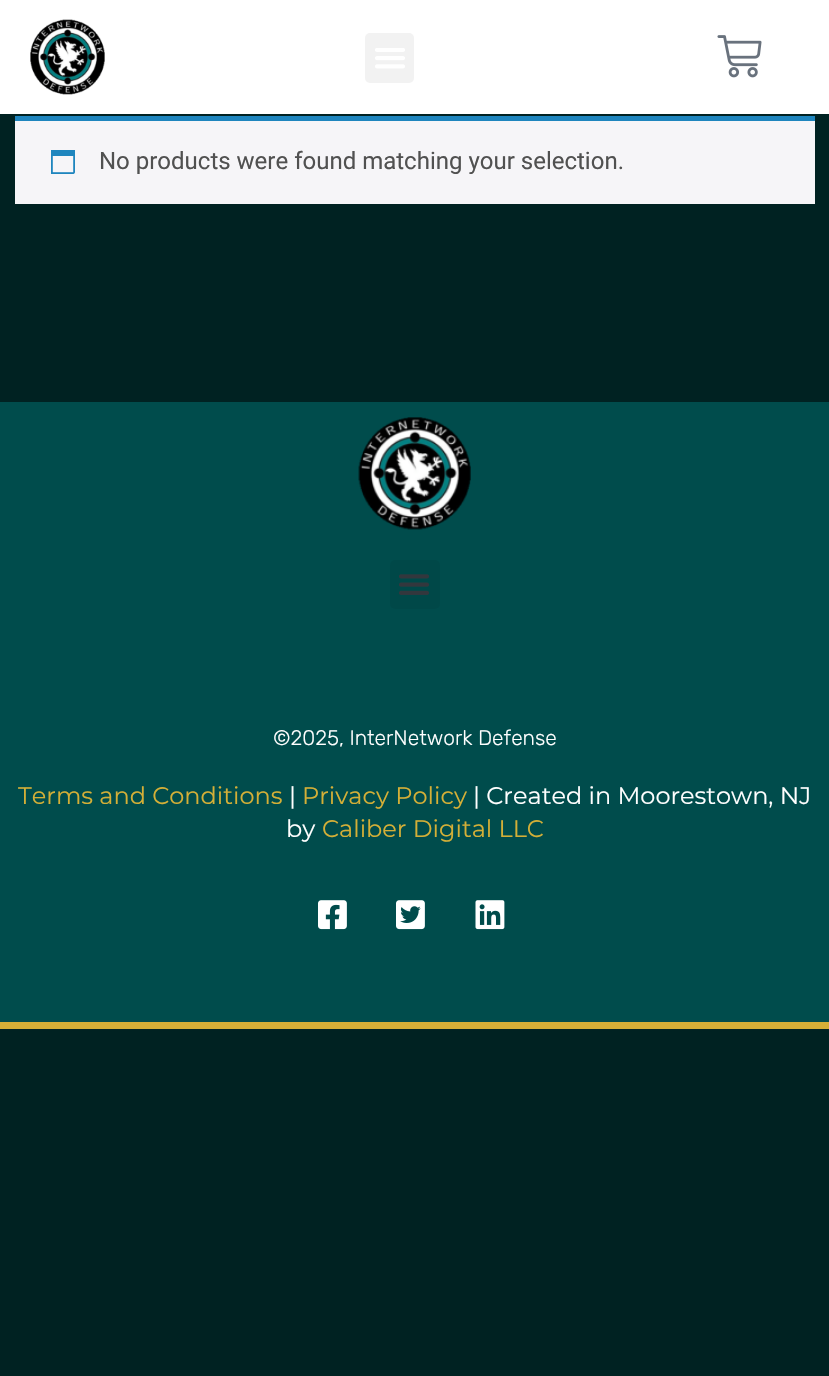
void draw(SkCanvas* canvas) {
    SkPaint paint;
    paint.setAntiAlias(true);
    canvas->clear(0xFF002222);
    paint.setColor(0xFFFFFFFF);
    canvas->drawRect(SkRect::MakeXYWH(0, 0, 829, 114), paint);
    canvas->drawImageRect(SkImages::DeferredFromEncodedData(SkData::MakeFromFileName("img1.png")), SkRect::MakeXYWH(30, 19, 75, 76), SkSamplingOptions());
    paint.setColor(0xFFF2F2F2);
    canvas->drawRoundRect(SkRect::MakeXYWH(365, 33, 49, 50), 5, 5, paint);
    canvas->drawImageRect(SkImages::DeferredFromEncodedData(SkData::MakeFromFileName("img2.png")), SkRect::MakeXYWH(375, 48, 30, 21), SkSamplingOptions());
    canvas->drawImageRect(SkImages::DeferredFromEncodedData(SkData::MakeFromFileName("img3.png")), SkRect::MakeXYWH(717, 35, 45, 43), SkSamplingOptions());
    paint.setColor(0xFFF6F5F8);
    canvas->drawRect(SkRect::MakeXYWH(15, 121, 800, 83), paint);
    paint.setColor(0xFF1E85BE);
    canvas->drawRect(SkRect::MakeXYWH(15, 116, 800, 5), paint);
    canvas->drawImageRect(SkImages::DeferredFromEncodedData(SkData::MakeFromFileName("img4.png")), SkRect::MakeXYWH(51, 150, 24, 24), SkSamplingOptions());
    SkFont font1(fontMgr->matchFamilyStyle("Roboto", SkFontStyle::Normal()), 24);
    font1.setSubpixel(true);
    paint.setColor(0xFF515151);
    canvas->drawString("No products were found matching your selection.", 99, 169, font1, paint);
    paint.setColor(0xFF004C4C);
    canvas->drawRect(SkRect::MakeXYWH(0, 402, 829, 620), paint);
    paint.setColor(0xFFD4AF37);
    canvas->drawRect(SkRect::MakeXYWH(0, 1022, 829, 7), paint);
    canvas->drawImageRect(SkImages::DeferredFromEncodedData(SkData::MakeFromFileName("img5.png")), SkRect::MakeXYWH(358, 417, 113, 113), SkSamplingOptions());
    paint.setColor(0xFF004848);
    canvas->drawRoundRect(SkRect::MakeXYWH(390, 560, 50, 49), 5, 5, paint);
    canvas->drawImageRect(SkImages::DeferredFromEncodedData(SkData::MakeFromFileName("img6.png")), SkRect::MakeXYWH(399, 574, 30, 21), SkSamplingOptions());
    SkFont font2(fontMgr->matchFamilyStyle("Rubik", SkFontStyle(300, SkFontStyle::kNormal_Width, SkFontStyle::kUpright_Slant)), 21);
    font2.setSubpixel(true);
    paint.setColor(0xFFFFFFFF);
    canvas->drawString("©2025, InterNetwork Defense", 273, 745, font2, paint);
    SkFont font3(fontMgr->matchFamilyStyle("Montserrat", SkFontStyle::Normal()), 24);
    font3.setSubpixel(true);
    paint.setColor(0xFFD4AF37);
    canvas->drawString("Terms and Conditions", 18, 804, font3, paint);
    paint.setColor(0xFFFFFFFF);
    canvas->drawString("|", 289, 804, font3, paint);
    paint.setColor(0xFFD4AF37);
    canvas->drawString("Privacy Policy", 302, 804, font3, paint);
    paint.setColor(0xFFFFFFFF);
    canvas->drawString("| Created in Moorestown, NJ", 473, 804, font3, paint);
    canvas->drawString("by", 286, 837, font3, paint);
    paint.setColor(0xFFD4AF37);
    canvas->drawString("Caliber Digital LLC", 322, 837, font3, paint);
    canvas->drawImageRect(SkImages::DeferredFromEncodedData(SkData::MakeFromFileName("img7.png")), SkRect::MakeXYWH(318, 900, 29, 30), SkSamplingOptions());
    canvas->drawImageRect(SkImages::DeferredFromEncodedData(SkData::MakeFromFileName("img8.png")), SkRect::MakeXYWH(396, 900, 29, 30), SkSamplingOptions());
    canvas->drawImageRect(SkImages::DeferredFromEncodedData(SkData::MakeFromFileName("img9.png")), SkRect::MakeXYWH(475, 900, 30, 30), SkSamplingOptions());
}
